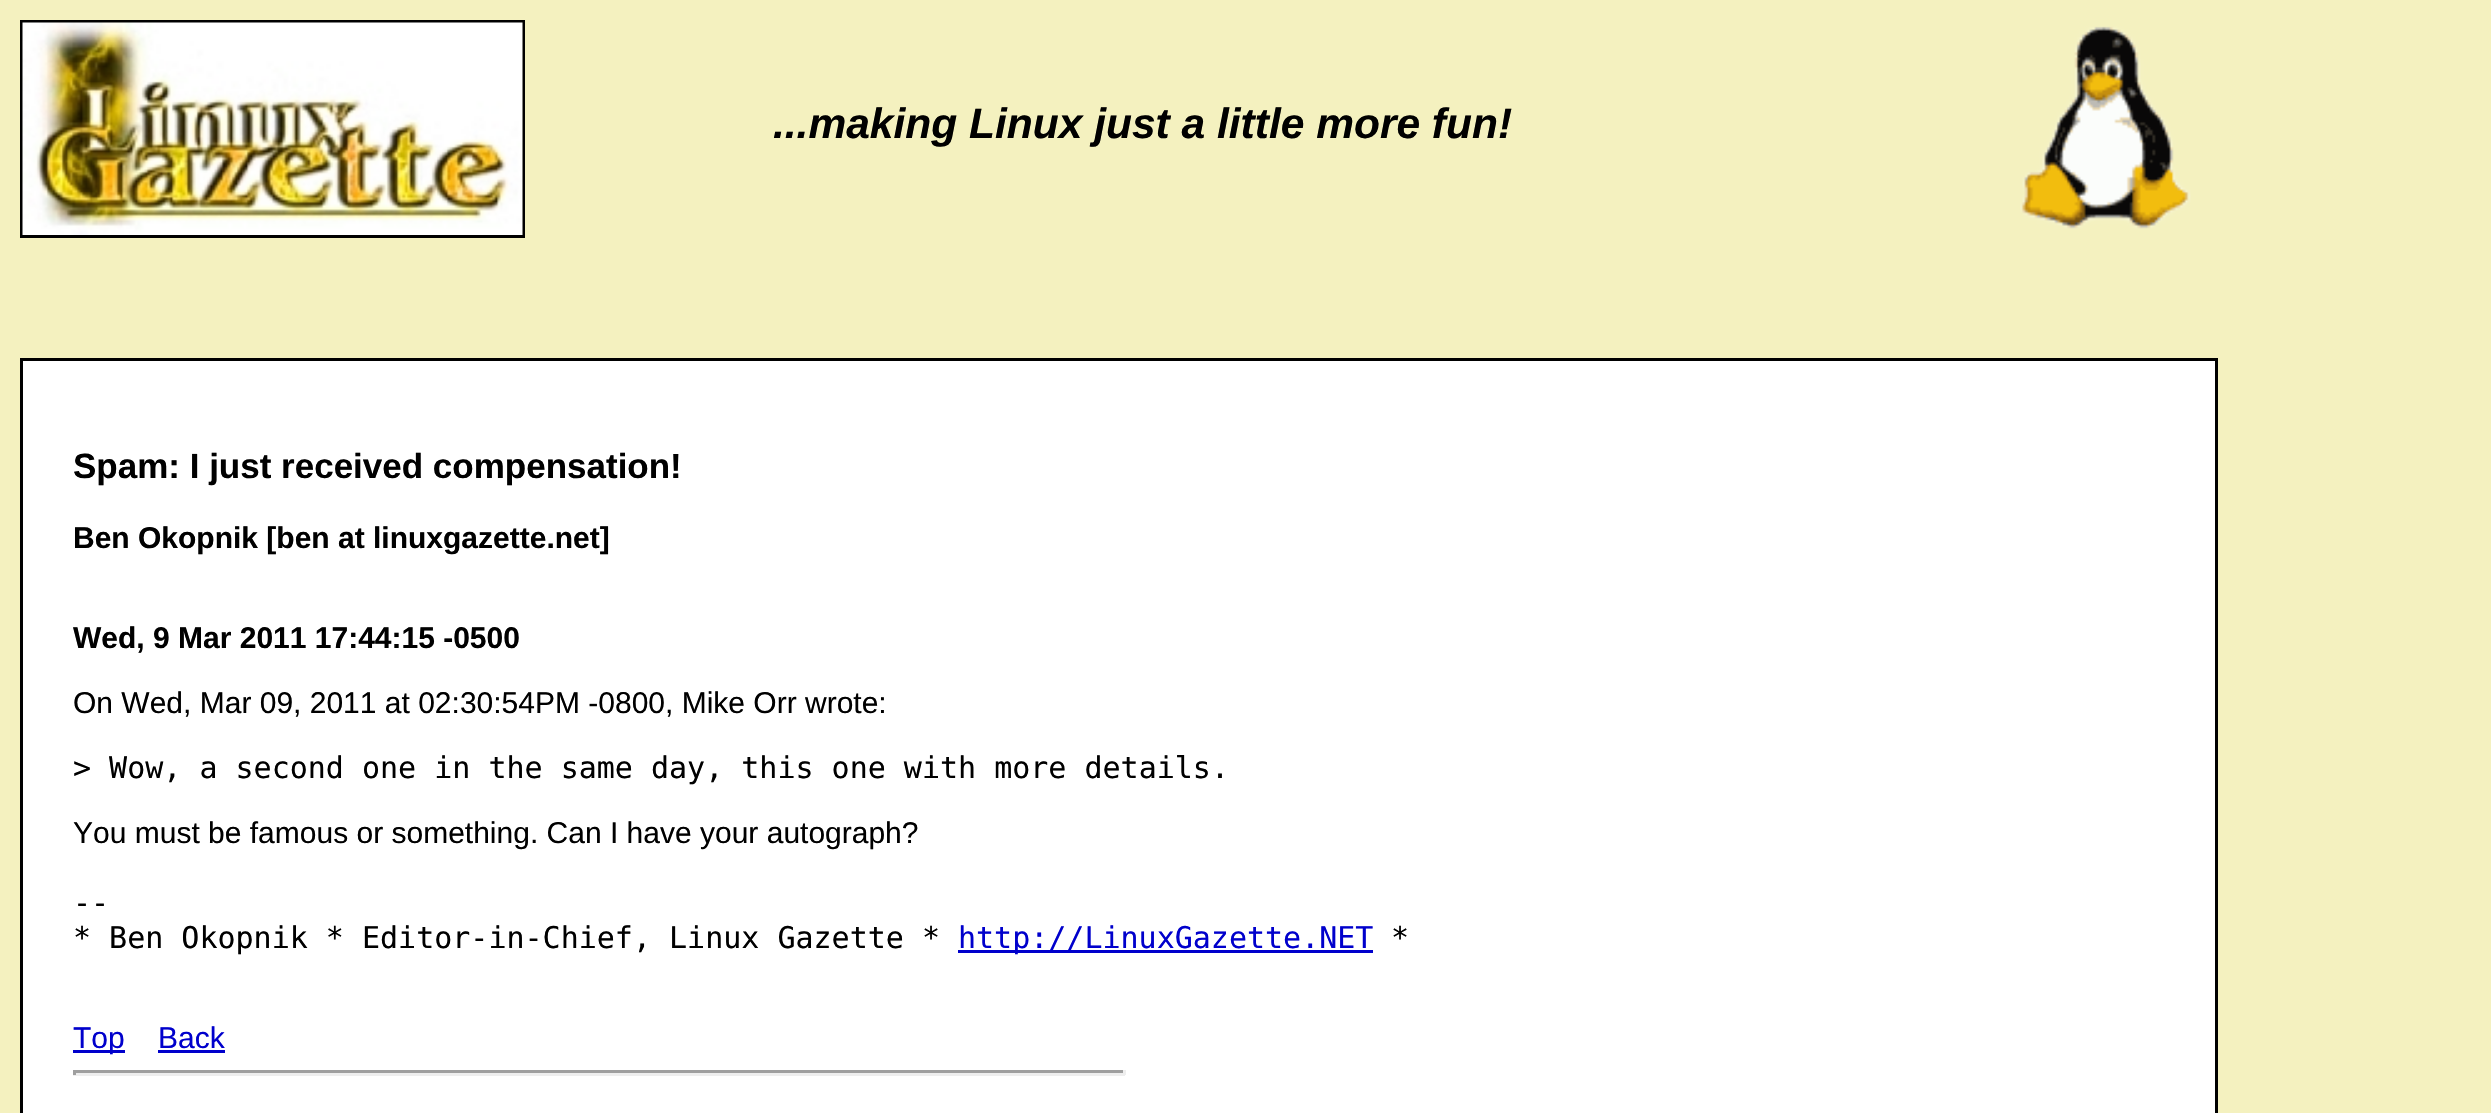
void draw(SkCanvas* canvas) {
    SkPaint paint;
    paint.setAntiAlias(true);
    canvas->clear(0xFFF4F1BF);
    paint.setStyle(SkPaint::kStroke_Style);
    paint.setStrokeWidth(3);
    paint.setColor(0xFF000000);
    canvas->drawRect(SkRect::MakeXYWH(21.5f, 21.5f, 502, 215), paint);
    canvas->drawImageRect(SkImages::DeferredFromEncodedData(SkData::MakeFromFileName("img1.png")), SkRect::MakeXYWH(22, 22, 501, 213), SkSamplingOptions());
    SkFont font1(fontMgr->matchFamilyStyle("Liberation Sans", SkFontStyle::BoldItalic()), 42.5f);
    font1.setSubpixel(true);
    paint.setStyle(SkPaint::kFill_Style);
    canvas->drawString("...making Linux just a little more fun!", 773, 138, font1, paint);
    canvas->drawImageRect(SkImages::DeferredFromEncodedData(SkData::MakeFromFileName("img2.png")), SkRect::MakeXYWH(2020, 26, 171, 203), SkSamplingOptions());
    paint.setColor(0xFFFFFFFF);
    canvas->drawRect(SkRect::MakeXYWH(21.5f, 359.5f, 2195, 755), paint);
    paint.setStyle(SkPaint::kStroke_Style);
    paint.setColor(0xFF000000);
    canvas->drawRect(SkRect::MakeXYWH(21.5f, 359.5f, 2195, 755), paint);
    SkFont font2(fontMgr->matchFamilyStyle("Liberation Sans", SkFontStyle::Bold()), 35);
    font2.setSubpixel(true);
    paint.setStyle(SkPaint::kFill_Style);
    canvas->drawString("Spam: I just received compensation!", 73, 478, font2, paint);
    SkFont font3(fontMgr->matchFamilyStyle("Liberation Sans", SkFontStyle::Bold()), 30);
    font3.setSubpixel(true);
    canvas->drawString("Ben Okopnik [ben at linuxgazette.net]", 73, 548, font3, paint);
    canvas->drawString("Wed, 9 Mar 2011 17:44:15 -0500", 73, 648, font3, paint);
    SkFont font4(fontMgr->matchFamilyStyle("Liberation Sans", SkFontStyle::Normal()), 30);
    font4.setSubpixel(true);
    canvas->drawString("On Wed, Mar 09, 2011 at 02:30:54PM -0800, Mike Orr wrote:", 73, 713, font4, paint);
    SkFont font5(fontMgr->matchFamilyStyle("DejaVu Sans Mono", SkFontStyle::Normal()), 30);
    font5.setSubpixel(true);
    canvas->drawString("> Wow, a second one in the same day, this one with more details.", 73, 778, font5, paint);
    canvas->drawString("You must be famous or something. Can I have your autograph?", 73, 843, font4, paint);
    canvas->drawString("--", 73, 913, font5, paint);
    canvas->drawString("* Ben Okopnik * Editor-in-Chief, Linux Gazette *", 73, 948, font5, paint);
    paint.setColor(0xFF0000CC);
    canvas->drawRect(SkRect::MakeXYWH(958, 950, 415, 3), paint);
    canvas->drawString("http://LinuxGazette.NET", 958, 948, font5, paint);
    paint.setColor(0xFF000000);
    canvas->drawString("*", 1391, 948, font5, paint);
    paint.setColor(0xFF0000CC);
    canvas->drawRect(SkRect::MakeXYWH(73, 1050, 52, 3), paint);
    canvas->drawString("Top", 73, 1048, font4, paint);
    canvas->drawString("Back", 158, 1048, font4, paint);
    canvas->drawRect(SkRect::MakeXYWH(158, 1050, 67, 3), paint);
    paint.setColor(0xFF9F9F9F);
    canvas->drawRect(SkRect::MakeXYWH(73, 1070, 1052, 3), paint);
    paint.setColor(0xFFEEEEEE);
    canvas->drawRect(SkRect::MakeXYWH(1123, 1070, 3, 5), paint);
    canvas->drawRect(SkRect::MakeXYWH(73, 1073, 1052, 3), paint);
    paint.setColor(0xFF9F9F9F);
    canvas->drawRect(SkRect::MakeXYWH(73, 1070, 3, 5), paint);
}
